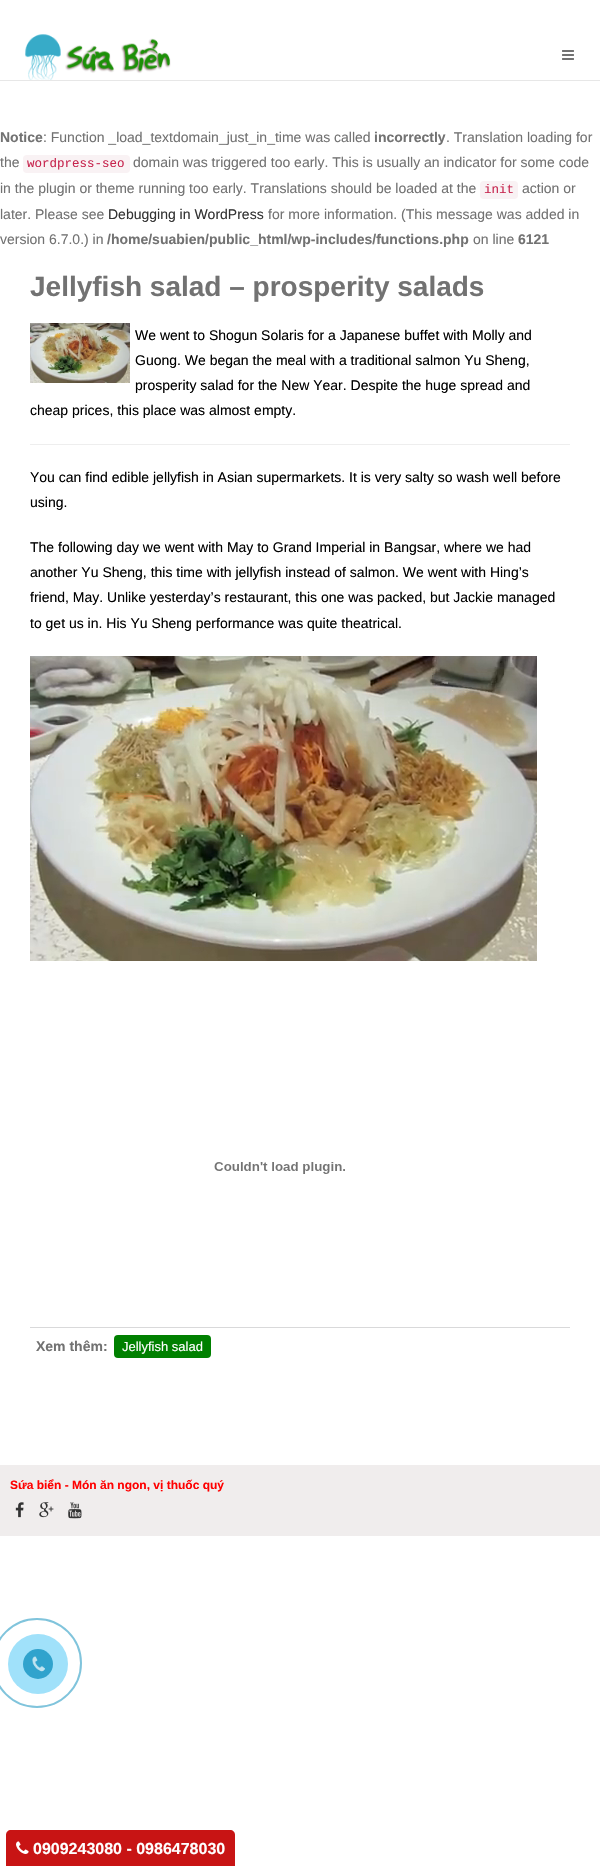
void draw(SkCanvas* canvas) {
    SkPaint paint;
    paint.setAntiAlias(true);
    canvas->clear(0xFFFFFFFF);
    paint.setColor(0xFFE7E7E7);
    canvas->drawRect(SkRect::MakeXYWH(0, 80, 600, 1), paint);
    canvas->drawImageRect(SkImages::DeferredFromEncodedData(SkData::MakeFromFileName("img1.png")), SkRect::MakeXYWH(25, 34, 146, 46), SkSamplingOptions());
    canvas->drawImageRect(SkImages::DeferredFromEncodedData(SkData::MakeFromFileName("img2.png")), SkRect::MakeXYWH(562, 50, 12, 10), SkSamplingOptions());
    SkFont font1(fontMgr->matchFamilyStyle("Liberation Sans", SkFontStyle::Bold()), 14);
    font1.setSubpixel(true);
    paint.setColor(0xFF727272);
    canvas->drawString("Notice", 0, 142, font1, paint);
    SkFont font2(fontMgr->matchFamilyStyle("Liberation Sans", SkFontStyle::Normal()), 14);
    font2.setSubpixel(true);
    canvas->drawString(": Function _load_textdomain_just_in_time was called", 43, 142, font2, paint);
    canvas->drawString("incorrectly", 374, 142, font1, paint);
    canvas->drawString(". Translation loading for", 446, 142, font2, paint);
    canvas->drawString("the", 0, 167, font2, paint);
    paint.setColor(0xFFF9F2F4);
    canvas->drawRoundRect(SkRect::MakeXYWH(23, 155, 107, 18), 4, 4, paint);
    SkFont font3(fontMgr->matchFamilyStyle("Liberation Mono", SkFontStyle::Normal()), 12.5f);
    font3.setSubpixel(true);
    paint.setColor(0xFFC7254E);
    canvas->drawString("wordpress-seo", 27, 167, font3, paint);
    paint.setColor(0xFF727272);
    canvas->drawString("domain was triggered too early. This is usually an indicator for some code", 133, 167, font2, paint);
    canvas->drawString("in the plugin or theme running too early. Translations should be loaded at the", 0, 193, font2, paint);
    paint.setColor(0xFFF9F2F4);
    canvas->drawRoundRect(SkRect::MakeXYWH(480, 181, 38, 18), 4, 4, paint);
    paint.setColor(0xFFC7254E);
    canvas->drawString("init", 484, 193, font3, paint);
    paint.setColor(0xFF727272);
    canvas->drawString("action or", 522, 193, font2, paint);
    canvas->drawString("later. Please see", 0, 219, font2, paint);
    paint.setColor(0xFF333333);
    canvas->drawString("Debugging in WordPress", 108, 219, font2, paint);
    paint.setColor(0xFF727272);
    canvas->drawString("for more information. (This message was added in", 268, 219, font2, paint);
    canvas->drawString("version 6.7.0.) in", 0, 244, font2, paint);
    canvas->drawString("/home/suabien/public_html/wp-includes/functions.php", 107, 244, font1, paint);
    canvas->drawString("on line", 473, 244, font2, paint);
    canvas->drawString("6121", 518, 244, font1, paint);
    SkFont font4(fontMgr->matchFamilyStyle("Liberation Sans", SkFontStyle::Bold()), 28);
    font4.setSubpixel(true);
    canvas->drawString("Jellyfish salad – prosperity salads", 30, 296, font4, paint);
    canvas->drawImageRect(SkImages::DeferredFromEncodedData(SkData::MakeFromFileName("img3.png")), SkRect::MakeXYWH(30, 323, 100, 60), SkSamplingOptions());
    paint.setColor(0xFF000000);
    canvas->drawString("We went to Shogun Solaris for a Japanese buffet with Molly and", 135, 340, font2, paint);
    canvas->drawString("Guong. We began the meal with a traditional salmon Yu Sheng,", 135, 365, font2, paint);
    canvas->drawString("prosperity salad for the New Year. Despite the huge spread and", 135, 390, font2, paint);
    canvas->drawString("cheap prices, this place was almost empty.", 30, 415, font2, paint);
    paint.setColor(0xFFEEEEEE);
    canvas->drawRect(SkRect::MakeXYWH(30, 444, 540, 1), paint);
    paint.setColor(0xFF000000);
    canvas->drawString("You can find edible jellyfish in Asian supermarkets. It is very salty so wash well before", 30, 482, font2, paint);
    canvas->drawString("using.", 30, 507, font2, paint);
    canvas->drawString("The following day we went with May to Grand Imperial in Bangsar, where we had", 30, 552, font2, paint);
    canvas->drawString("another Yu Sheng, this time with jellyfish instead of salmon. We went with Hing’s", 30, 577, font2, paint);
    canvas->drawString("friend, May. Unlike yesterday’s restaurant, this one was packed, but Jackie managed", 30, 602, font2, paint);
    canvas->drawString("to get us in. His Yu Sheng performance was quite theatrical.", 30, 628, font2, paint);
    canvas->drawImageRect(SkImages::DeferredFromEncodedData(SkData::MakeFromFileName("img4.png")), SkRect::MakeXYWH(30, 656, 507, 305), SkSamplingOptions());
    canvas->drawImageRect(SkImages::DeferredFromEncodedData(SkData::MakeFromFileName("img5.png")), SkRect::MakeXYWH(214, 1162, 131, 12), SkSamplingOptions());
    paint.setColor(0xFFD9D9DA);
    canvas->drawRect(SkRect::MakeXYWH(30, 1327, 540, 1), paint);
    paint.setColor(0xFF727272);
    canvas->drawString("Xem thêm:", 36, 1351, font1, paint);
    paint.setColor(0xFF008000);
    canvas->drawRoundRect(SkRect::MakeXYWH(114, 1335, 97, 23), 4, 4, paint);
    SkFont font5(fontMgr->matchFamilyStyle("Liberation Sans", SkFontStyle::Normal()), 13);
    font5.setSubpixel(true);
    paint.setColor(0xFFFFFFFF);
    canvas->drawString("Jellyfish salad", 122, 1351, font5, paint);
    paint.setColor(0xFFF0EDED);
    canvas->drawRect(SkRect::MakeXYWH(0, 1465, 600, 71), paint);
    SkFont font6(fontMgr->matchFamilyStyle("Liberation Sans", SkFontStyle::Bold()), 12);
    font6.setSubpixel(true);
    paint.setColor(0xFFFF0000);
    canvas->drawString("Sứa biển - Món ăn ngon, vị thuốc quý", 10, 1489, font6, paint);
    canvas->drawImageRect(SkImages::DeferredFromEncodedData(SkData::MakeFromFileName("img6.png")), SkRect::MakeXYWH(15, 1502, 9, 16), SkSamplingOptions());
    canvas->drawImageRect(SkImages::DeferredFromEncodedData(SkData::MakeFromFileName("img7.png")), SkRect::MakeXYWH(39, 1502, 15, 16), SkSamplingOptions());
    canvas->drawImageRect(SkImages::DeferredFromEncodedData(SkData::MakeFromFileName("img8.png")), SkRect::MakeXYWH(68, 1502, 14, 17), SkSamplingOptions());
    paint.setStyle(SkPaint::kStroke_Style);
    paint.setStrokeWidth(2);
    paint.setColor(0xFF80C4DC);
    canvas->drawCircle(37, 1663, 44, paint);
    paint.setStyle(SkPaint::kFill_Style);
    paint.setColor(0xFFA0E1FA);
    canvas->drawCircle(38, 1664, 30, paint);
    paint.setColor(0xFF30A3CD);
    canvas->drawCircle(38, 1664, 15, paint);
    canvas->drawImageRect(SkImages::DeferredFromEncodedData(SkData::MakeFromFileName("img9.png")), SkRect::MakeXYWH(32, 1656, 13, 16), SkSamplingOptions());
    paint.setColor(0xFFC81414);
    canvas->drawPath(SkPathBuilder().moveTo(11, 1830).lineTo(230, 1830).cubicTo(233, 1830, 235, 1832, 235, 1835).lineTo(235, 1866).lineTo(6, 1866).lineTo(6, 1835).cubicTo(6, 1832, 8, 1830, 11, 1830).close().detach(), paint);
    canvas->drawImageRect(SkImages::DeferredFromEncodedData(SkData::MakeFromFileName("img10.png")), SkRect::MakeXYWH(16, 1841, 13, 13), SkSamplingOptions());
    SkFont font7(fontMgr->matchFamilyStyle("Liberation Sans", SkFontStyle::Bold()), 16);
    font7.setSubpixel(true);
    paint.setColor(0xFFFFFFFF);
    canvas->drawString("0909243080 - 0986478030", 33, 1854, font7, paint);
}
